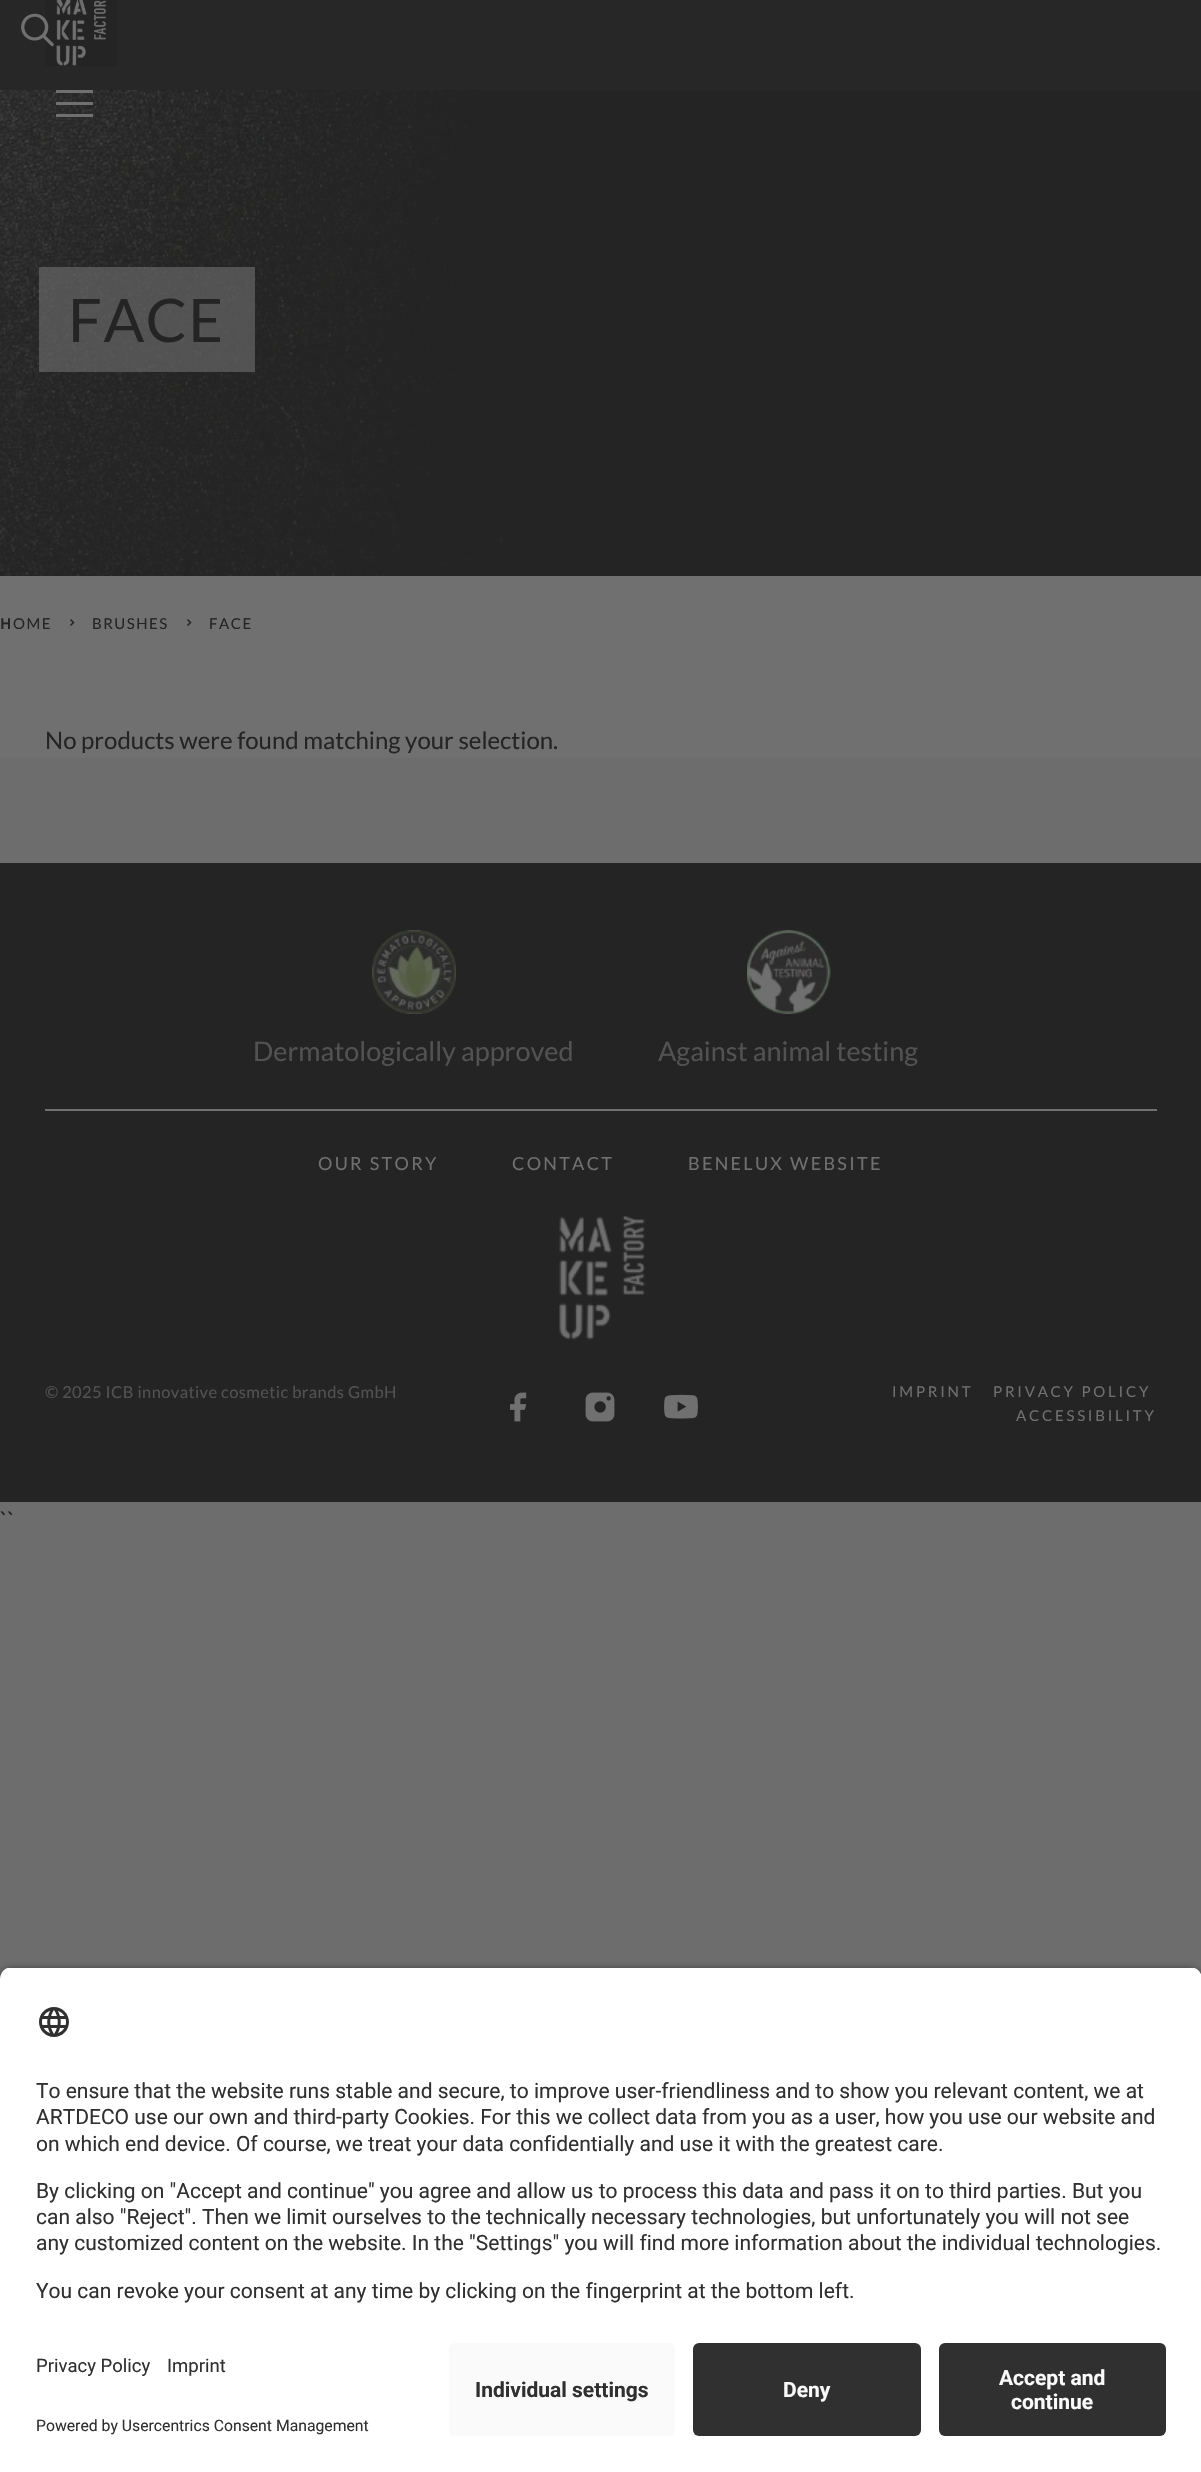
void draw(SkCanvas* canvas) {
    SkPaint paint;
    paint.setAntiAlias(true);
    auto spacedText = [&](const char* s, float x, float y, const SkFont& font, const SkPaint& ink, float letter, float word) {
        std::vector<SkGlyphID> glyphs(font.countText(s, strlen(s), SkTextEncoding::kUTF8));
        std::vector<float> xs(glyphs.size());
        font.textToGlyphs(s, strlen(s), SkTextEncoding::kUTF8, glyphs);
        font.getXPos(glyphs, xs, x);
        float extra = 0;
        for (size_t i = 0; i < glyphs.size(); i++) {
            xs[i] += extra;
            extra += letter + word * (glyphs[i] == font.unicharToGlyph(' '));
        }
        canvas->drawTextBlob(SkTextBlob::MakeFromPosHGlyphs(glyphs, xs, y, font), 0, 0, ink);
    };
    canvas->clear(0xFF6D6D6D);
    paint.setColor(0xFF272727);
    canvas->drawRect(SkRect::MakeXYWH(0, 0, 1201, 90), paint);
    canvas->drawImageRect(SkImages::DeferredFromEncodedData(SkData::MakeFromFileName("img2.png")), SkRect::MakeXYWH(45, 0, 72, 66), SkSamplingOptions());
    canvas->drawImageRect(SkImages::DeferredFromEncodedData(SkData::MakeFromFileName("img1.png")), SkRect::MakeXYWH(21, 13, 33, 34), SkSamplingOptions());
    canvas->drawImageRect(SkImages::DeferredFromEncodedData(SkData::MakeFromFileName("img3.png")), SkRect::MakeXYWH(0, 90, 1201, 486), SkSamplingOptions());
    canvas->save();
    canvas->clipRect(SkRect::MakeXYWH(56, 90, 37, 27));
    paint.setColor(0xFF707070);
    canvas->drawPath(SkPathBuilder().moveTo(112, 114).lineTo(112, 117).lineTo(56, 117).lineTo(56, 114).close().moveTo(112, 102).lineTo(112, 105).lineTo(56, 105).lineTo(56, 102).close().moveTo(112, 90).lineTo(112, 93).lineTo(56, 93).lineTo(56, 90).close().detach(), paint);
    canvas->restore();
    canvas->drawRect(SkRect::MakeXYWH(0, 576, 1201, 182), paint);
    paint.setColor(0x99707070);
    canvas->drawRect(SkRect::MakeXYWH(39, 267, 216, 105), paint);
    SkFont font1(fontMgr->matchFamilyStyle("Lato", SkFontStyle::Normal()), 60);
    font1.setSubpixel(true);
    paint.setColor(0xFF242424);
    spacedText("FACE", 68, 342, font1, paint, 1.5f, 0);
    SkFont font2(fontMgr->matchFamilyStyle("Noto Sans", SkFontStyle(600, SkFontStyle::kNormal_Width, SkFontStyle::kUpright_Slant)), 15);
    font2.setSubpixel(true);
    spacedText("H", 0, 629, font2, paint, 1.5f, 0);
    SkFont font3(fontMgr->matchFamilyStyle("Lato", SkFontStyle::Normal()), 15);
    font3.setSubpixel(true);
    spacedText("OME", 13, 629, font3, paint, 1.5f, 0);
    canvas->drawImageRect(SkImages::DeferredFromEncodedData(SkData::MakeFromFileName("img4.png")), SkRect::MakeXYWH(70, 619, 5, 7), SkSamplingOptions());
    spacedText("BRUSHES", 92, 629, font3, paint, 1.5f, 0);
    canvas->drawImageRect(SkImages::DeferredFromEncodedData(SkData::MakeFromFileName("img4.png")), SkRect::MakeXYWH(187, 619, 5, 7), SkSamplingOptions());
    spacedText("FACE", 209, 629, font3, paint, 1.5f, 0);
    SkFont font4(fontMgr->matchFamilyStyle("Lato", SkFontStyle::Normal()), 24);
    font4.setSubpixel(true);
    canvas->drawString("No products were found matching your selection.", 45, 749, font4, paint);
    canvas->drawRect(SkRect::MakeXYWH(0, 863, 1201, 639), paint);
    canvas->drawImageRect(SkImages::DeferredFromEncodedData(SkData::MakeFromFileName("img5.png")), SkRect::MakeXYWH(372, 930, 84, 84), SkSamplingOptions());
    SkFont font5(fontMgr->matchFamilyStyle("Lato", SkFontStyle::Normal()), 27);
    font5.setSubpixel(true);
    paint.setColor(0xFF525252);
    canvas->drawString("Dermatologically approved", 253, 1061, font5, paint);
    canvas->drawImageRect(SkImages::DeferredFromEncodedData(SkData::MakeFromFileName("img6.png")), SkRect::MakeXYWH(747, 930, 84, 84), SkSamplingOptions());
    canvas->drawString("Against animal testing", 658, 1061, font5, paint);
    paint.setColor(0xFF707070);
    canvas->drawRect(SkRect::MakeXYWH(45, 1109, 1112, 2), paint);
    SkFont font6(fontMgr->matchFamilyStyle("Lato", SkFontStyle::Normal()), 18);
    font6.setSubpixel(true);
    spacedText("OUR STORY", 318, 1170, font6, paint, 2.3f, 0);
    spacedText("CONTACT", 512, 1170, font6, paint, 2.3f, 0);
    spacedText("BENELUX WEBSITE", 688, 1170, font6, paint, 2.3f, 0);
    canvas->drawImageRect(SkImages::DeferredFromEncodedData(SkData::MakeFromFileName("img7.png")), SkRect::MakeXYWH(559, 1216, 100, 124), SkSamplingOptions());
    SkFont font7(fontMgr->matchFamilyStyle("Lato", SkFontStyle::Normal()), 16.5f);
    font7.setSubpixel(true);
    paint.setColor(0xFF525252);
    spacedText("© 2025 ICB innovative cosmetic brands GmbH", 45, 1398, font7, paint, 0.4f, 0);
    canvas->drawImageRect(SkImages::DeferredFromEncodedData(SkData::MakeFromFileName("img8.png")), SkRect::MakeXYWH(510, 1392, 17, 30), SkSamplingOptions());
    canvas->drawImageRect(SkImages::DeferredFromEncodedData(SkData::MakeFromFileName("img9.png")), SkRect::MakeXYWH(585, 1392, 30, 30), SkSamplingOptions());
    canvas->drawImageRect(SkImages::DeferredFromEncodedData(SkData::MakeFromFileName("img10.png")), SkRect::MakeXYWH(664, 1394, 34, 25), SkSamplingOptions());
    paint.setColor(0xFF707070);
    spacedText("IMPRINT", 892, 1397, font3, paint, 2.75f, 0);
    spacedText("PRIVACY POLICY", 993, 1397, font3, paint, 2.75f, 0);
    spacedText("ACCESSIBILITY", 1016, 1421, font3, paint, 2.75f, 0);
    paint.setColor(0xFF242424);
    canvas->drawString("``", 0, 1529, font4, paint);
    paint.setColor(0xCC000000);
    paint.setMaskFilter(SkMaskFilter::MakeBlur(kNormal_SkBlurStyle, 5));
    canvas->drawRoundRect(SkRect::MakeXYWH(0, 1971, 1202, 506), 12, 12, paint);
    paint.setMaskFilter(nullptr);
    canvas->save();
    canvas->clipPath(SkPathBuilder().moveTo(12, 1967).lineTo(1190, 1967).cubicTo(1196.5f, 1967, 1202, 1972.5f, 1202, 1979).lineTo(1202, 2331).lineTo(0, 2331).lineTo(0, 1979).cubicTo(0, 1972.5f, 5.5f, 1967, 12, 1967).close().detach(), true);
    paint.setColor(0xFFFFFFFF);
    canvas->drawRect(SkRect::MakeXYWH(0, 1968, 1201, 363), paint);
    canvas->restore();
    canvas->drawImageRect(SkImages::DeferredFromEncodedData(SkData::MakeFromFileName("img11.png")), SkRect::MakeXYWH(39, 2007, 30, 30), SkSamplingOptions());
    SkFont font8(fontMgr->matchFamilyStyle("Roboto", SkFontStyle::Normal()), 21);
    font8.setSubpixel(true);
    paint.setColor(0xFF303030);
    canvas->drawString("To ensure that the website runs stable and secure, to improve user-friendliness and to show you relevant content, we at", 36, 2098, font8, paint);
    canvas->drawString("ARTDECO use our own and third-party Cookies. For this we collect data from you as a user, how you use our website and", 36, 2124, font8, paint);
    canvas->drawString("on which end device. Of course, we treat your data confidentially and use it with the greatest care.", 36, 2151, font8, paint);
    canvas->drawString("By clicking on \"Accept and continue\" you agree and allow us to process this data and pass it on to third parties. But you", 36, 2198, font8, paint);
    canvas->drawString("can also \"Reject\". Then we limit ourselves to the technically necessary technologies, but unfortunately you will not see", 36, 2224, font8, paint);
    canvas->drawString("any customized content on the website. In the \"Settings\" you will find more information about the individual technologies.", 36, 2250, font8, paint);
    canvas->drawString("You can revoke your consent at any time by clicking on the fingerprint at the bottom left.", 36, 2298, font8, paint);
    paint.setColor(0xFFFFFFFF);
    canvas->drawRect(SkRect::MakeXYWH(0, 2331, 1201, 141), paint);
    SkFont font9(fontMgr->matchFamilyStyle("Roboto", SkFontStyle::Normal()), 18.5f);
    font9.setSubpixel(true);
    paint.setColor(0xFF303030);
    canvas->drawString("Privacy Policy", 36, 2372, font9, paint);
    canvas->drawString("Imprint", 167, 2372, font9, paint);
    SkFont font10(fontMgr->matchFamilyStyle("Roboto", SkFontStyle::Normal()), 15.75f);
    font10.setSubpixel(true);
    canvas->drawString("Powered by Usercentrics Consent Management", 36, 2431, font10, paint);
    paint.setColor(0xFFFAFAFA);
    canvas->drawRoundRect(SkRect::MakeXYWH(449, 2343, 226, 93), 6, 6, paint);
    SkFont font11(fontMgr->matchFamilyStyle("Roboto", SkFontStyle::Bold()), 21);
    font11.setSubpixel(true);
    paint.setColor(0xFF303030);
    canvas->drawString("Individual settings", 475, 2397, font11, paint);
    canvas->drawRoundRect(SkRect::MakeXYWH(693, 2343, 228, 93), 6, 6, paint);
    paint.setColor(0xFFFAFAFA);
    canvas->drawString("Deny", 783, 2397, font11, paint);
    paint.setColor(0xFF303030);
    canvas->drawRoundRect(SkRect::MakeXYWH(939, 2343, 227, 93), 6, 6, paint);
    paint.setColor(0xFFFAFAFA);
    canvas->drawString("Accept and", 999, 2385, font11, paint);
    canvas->drawString("continue", 1011, 2409, font11, paint);
}
